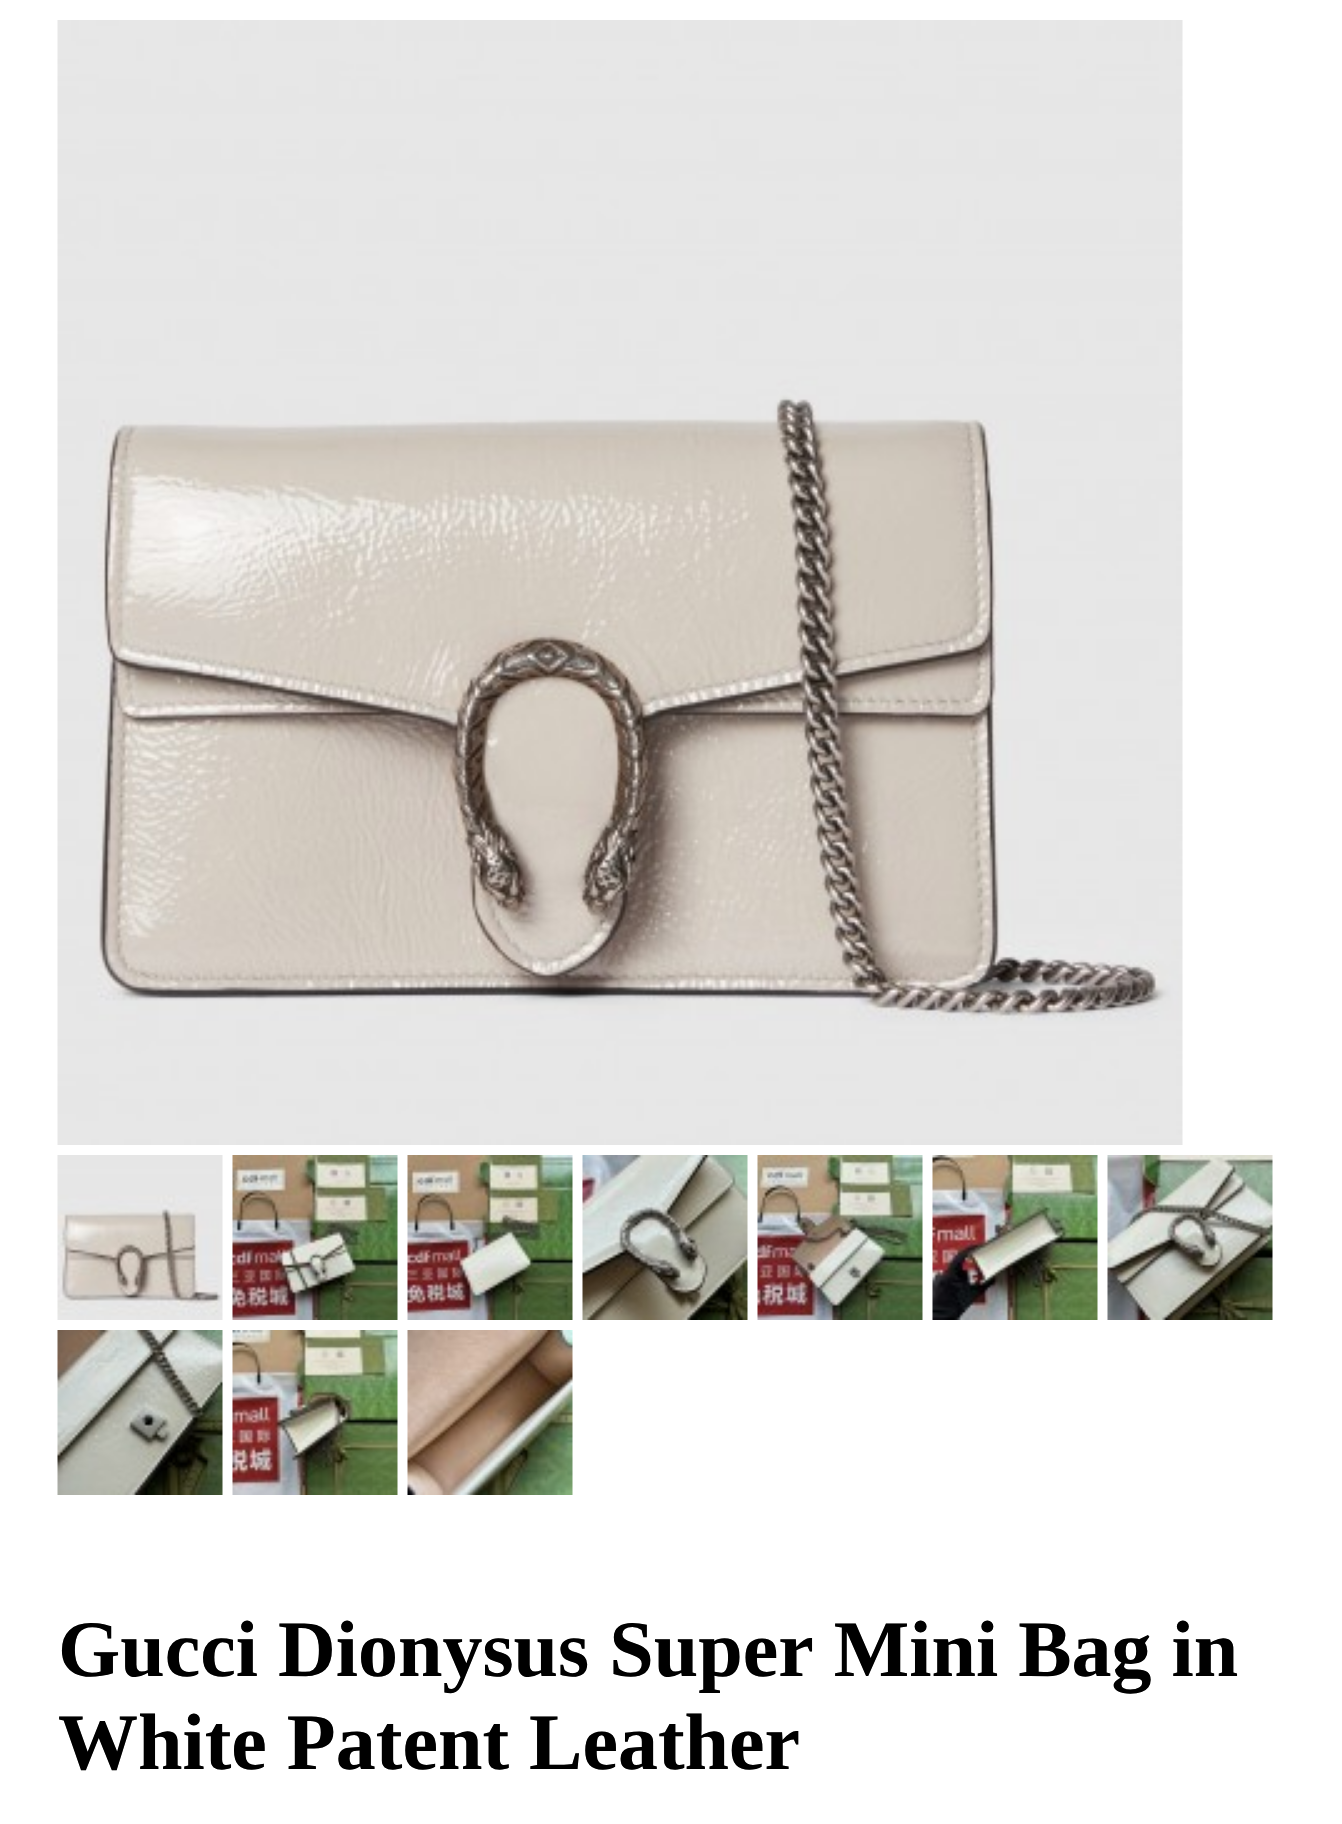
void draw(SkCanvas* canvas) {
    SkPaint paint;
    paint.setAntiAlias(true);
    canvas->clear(0xFFFFFFFF);
    canvas->drawImageRect(SkImages::DeferredFromEncodedData(SkData::MakeFromFileName("img1.png")), SkRect::MakeXYWH(57, 20, 1126, 1125), SkSamplingOptions());
    canvas->drawImageRect(SkImages::DeferredFromEncodedData(SkData::MakeFromFileName("img2.png")), SkRect::MakeXYWH(57, 1155, 166, 165), SkSamplingOptions());
    canvas->drawImageRect(SkImages::DeferredFromEncodedData(SkData::MakeFromFileName("img3.png")), SkRect::MakeXYWH(232, 1155, 166, 165), SkSamplingOptions());
    canvas->drawImageRect(SkImages::DeferredFromEncodedData(SkData::MakeFromFileName("img4.png")), SkRect::MakeXYWH(407, 1155, 166, 165), SkSamplingOptions());
    canvas->drawImageRect(SkImages::DeferredFromEncodedData(SkData::MakeFromFileName("img5.png")), SkRect::MakeXYWH(582, 1155, 166, 165), SkSamplingOptions());
    canvas->drawImageRect(SkImages::DeferredFromEncodedData(SkData::MakeFromFileName("img6.png")), SkRect::MakeXYWH(757, 1155, 166, 165), SkSamplingOptions());
    canvas->drawImageRect(SkImages::DeferredFromEncodedData(SkData::MakeFromFileName("img7.png")), SkRect::MakeXYWH(932, 1155, 166, 165), SkSamplingOptions());
    canvas->drawImageRect(SkImages::DeferredFromEncodedData(SkData::MakeFromFileName("img8.png")), SkRect::MakeXYWH(1107, 1155, 166, 165), SkSamplingOptions());
    canvas->drawImageRect(SkImages::DeferredFromEncodedData(SkData::MakeFromFileName("img9.png")), SkRect::MakeXYWH(57, 1330, 166, 165), SkSamplingOptions());
    canvas->drawImageRect(SkImages::DeferredFromEncodedData(SkData::MakeFromFileName("img10.png")), SkRect::MakeXYWH(232, 1330, 166, 165), SkSamplingOptions());
    canvas->drawImageRect(SkImages::DeferredFromEncodedData(SkData::MakeFromFileName("img11.png")), SkRect::MakeXYWH(407, 1330, 166, 165), SkSamplingOptions());
    SkFont font1(fontMgr->matchFamilyStyle("Liberation Serif", SkFontStyle::Bold()), 80);
    font1.setSubpixel(true);
    paint.setColor(0xFF000000);
    canvas->drawString("Gucci Dionysus Super Mini Bag in", 58, 1676, font1, paint);
    canvas->drawString("White Patent Leather", 58, 1769, font1, paint);
}
